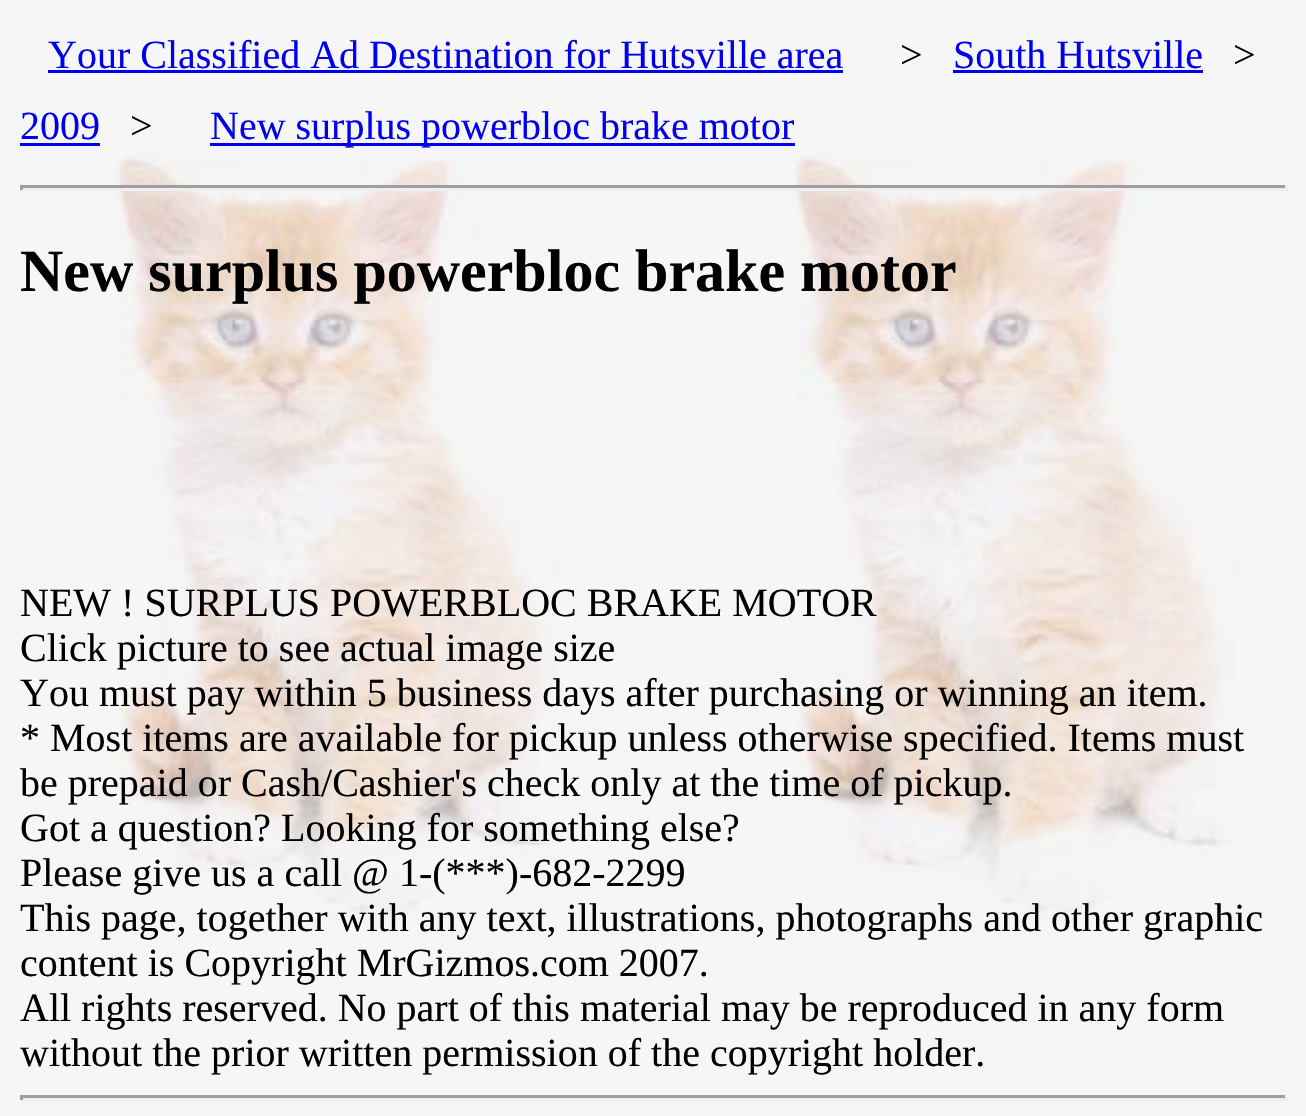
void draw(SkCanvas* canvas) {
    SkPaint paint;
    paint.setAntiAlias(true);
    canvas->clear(0xFFFFFFFF);
    canvas->drawImageRect(SkImages::DeferredFromEncodedData(SkData::MakeFromFileName("img1.png")), SkRect::MakeXYWH(0, 0, 1306, 1116), SkSamplingOptions());
    SkFont font1(fontMgr->matchFamilyStyle("Liberation Serif", SkFontStyle::Normal()), 40);
    font1.setSubpixel(true);
    paint.setColor(0xFF0000EE);
    canvas->drawString("Your Classified Ad Destination for Hutsville area", 48, 68, font1, paint);
    canvas->drawRect(SkRect::MakeXYWH(48, 70, 795, 3), paint);
    paint.setColor(0xFF000000);
    canvas->drawString(">", 900, 68, font1, paint);
    paint.setColor(0xFF0000EE);
    canvas->drawString("South Hutsville", 953, 68, font1, paint);
    canvas->drawRect(SkRect::MakeXYWH(953, 70, 250, 3), paint);
    paint.setColor(0xFF000000);
    canvas->drawString(">", 1233, 68, font1, paint);
    paint.setColor(0xFF0000EE);
    canvas->drawString("2009", 20, 139, font1, paint);
    canvas->drawRect(SkRect::MakeXYWH(20, 143, 80, 3), paint);
    paint.setColor(0xFF000000);
    canvas->drawString(">", 130, 139, font1, paint);
    paint.setColor(0xFF0000EE);
    canvas->drawRect(SkRect::MakeXYWH(210, 143, 585, 3), paint);
    canvas->drawString("New surplus powerbloc brake motor", 210, 139, font1, paint);
    paint.setColor(0xFF9F9F9F);
    canvas->drawRect(SkRect::MakeXYWH(20, 185, 1268, 3), paint);
    paint.setColor(0xFFEEEEEE);
    canvas->drawRect(SkRect::MakeXYWH(1285, 185, 3, 5), paint);
    canvas->drawRect(SkRect::MakeXYWH(20, 188, 1268, 3), paint);
    paint.setColor(0xFF9F9F9F);
    canvas->drawRect(SkRect::MakeXYWH(20, 185, 3, 5), paint);
    SkFont font2(fontMgr->matchFamilyStyle("Liberation Serif", SkFontStyle::Bold()), 60);
    font2.setSubpixel(true);
    paint.setColor(0xFF000000);
    canvas->drawString("New surplus powerbloc brake motor", 20, 291, font2, paint);
    canvas->drawString("NEW ! SURPLUS POWERBLOC BRAKE MOTOR", 20, 616, font1, paint);
    canvas->drawString("Click picture to see actual image size", 20, 661, font1, paint);
    canvas->drawString("You must pay within 5 business days after purchasing or winning an item.", 20, 706, font1, paint);
    canvas->drawString("* Most items are available for pickup unless otherwise specified. Items must", 20, 751, font1, paint);
    canvas->drawString("be prepaid or Cash/Cashier's check only at the time of pickup.", 20, 796, font1, paint);
    canvas->drawString("Got a question? Looking for something else?", 20, 841, font1, paint);
    canvas->drawString("Please give us a call @ 1-(***)-682-2299", 20, 886, font1, paint);
    canvas->drawString("This page, together with any text, illustrations, photographs and other graphic", 20, 931, font1, paint);
    canvas->drawString("content is Copyright MrGizmos.com 2007.", 20, 976, font1, paint);
    canvas->drawString("All rights reserved. No part of this material may be reproduced in any form", 20, 1021, font1, paint);
    canvas->drawString("without the prior written permission of the copyright holder.", 20, 1066, font1, paint);
    paint.setColor(0xFF9F9F9F);
    canvas->drawRect(SkRect::MakeXYWH(20, 1095, 1268, 3), paint);
    paint.setColor(0xFFEEEEEE);
    canvas->drawRect(SkRect::MakeXYWH(1285, 1095, 3, 5), paint);
    canvas->drawRect(SkRect::MakeXYWH(20, 1098, 1268, 3), paint);
    paint.setColor(0xFF9F9F9F);
    canvas->drawRect(SkRect::MakeXYWH(20, 1095, 3, 5), paint);
}
